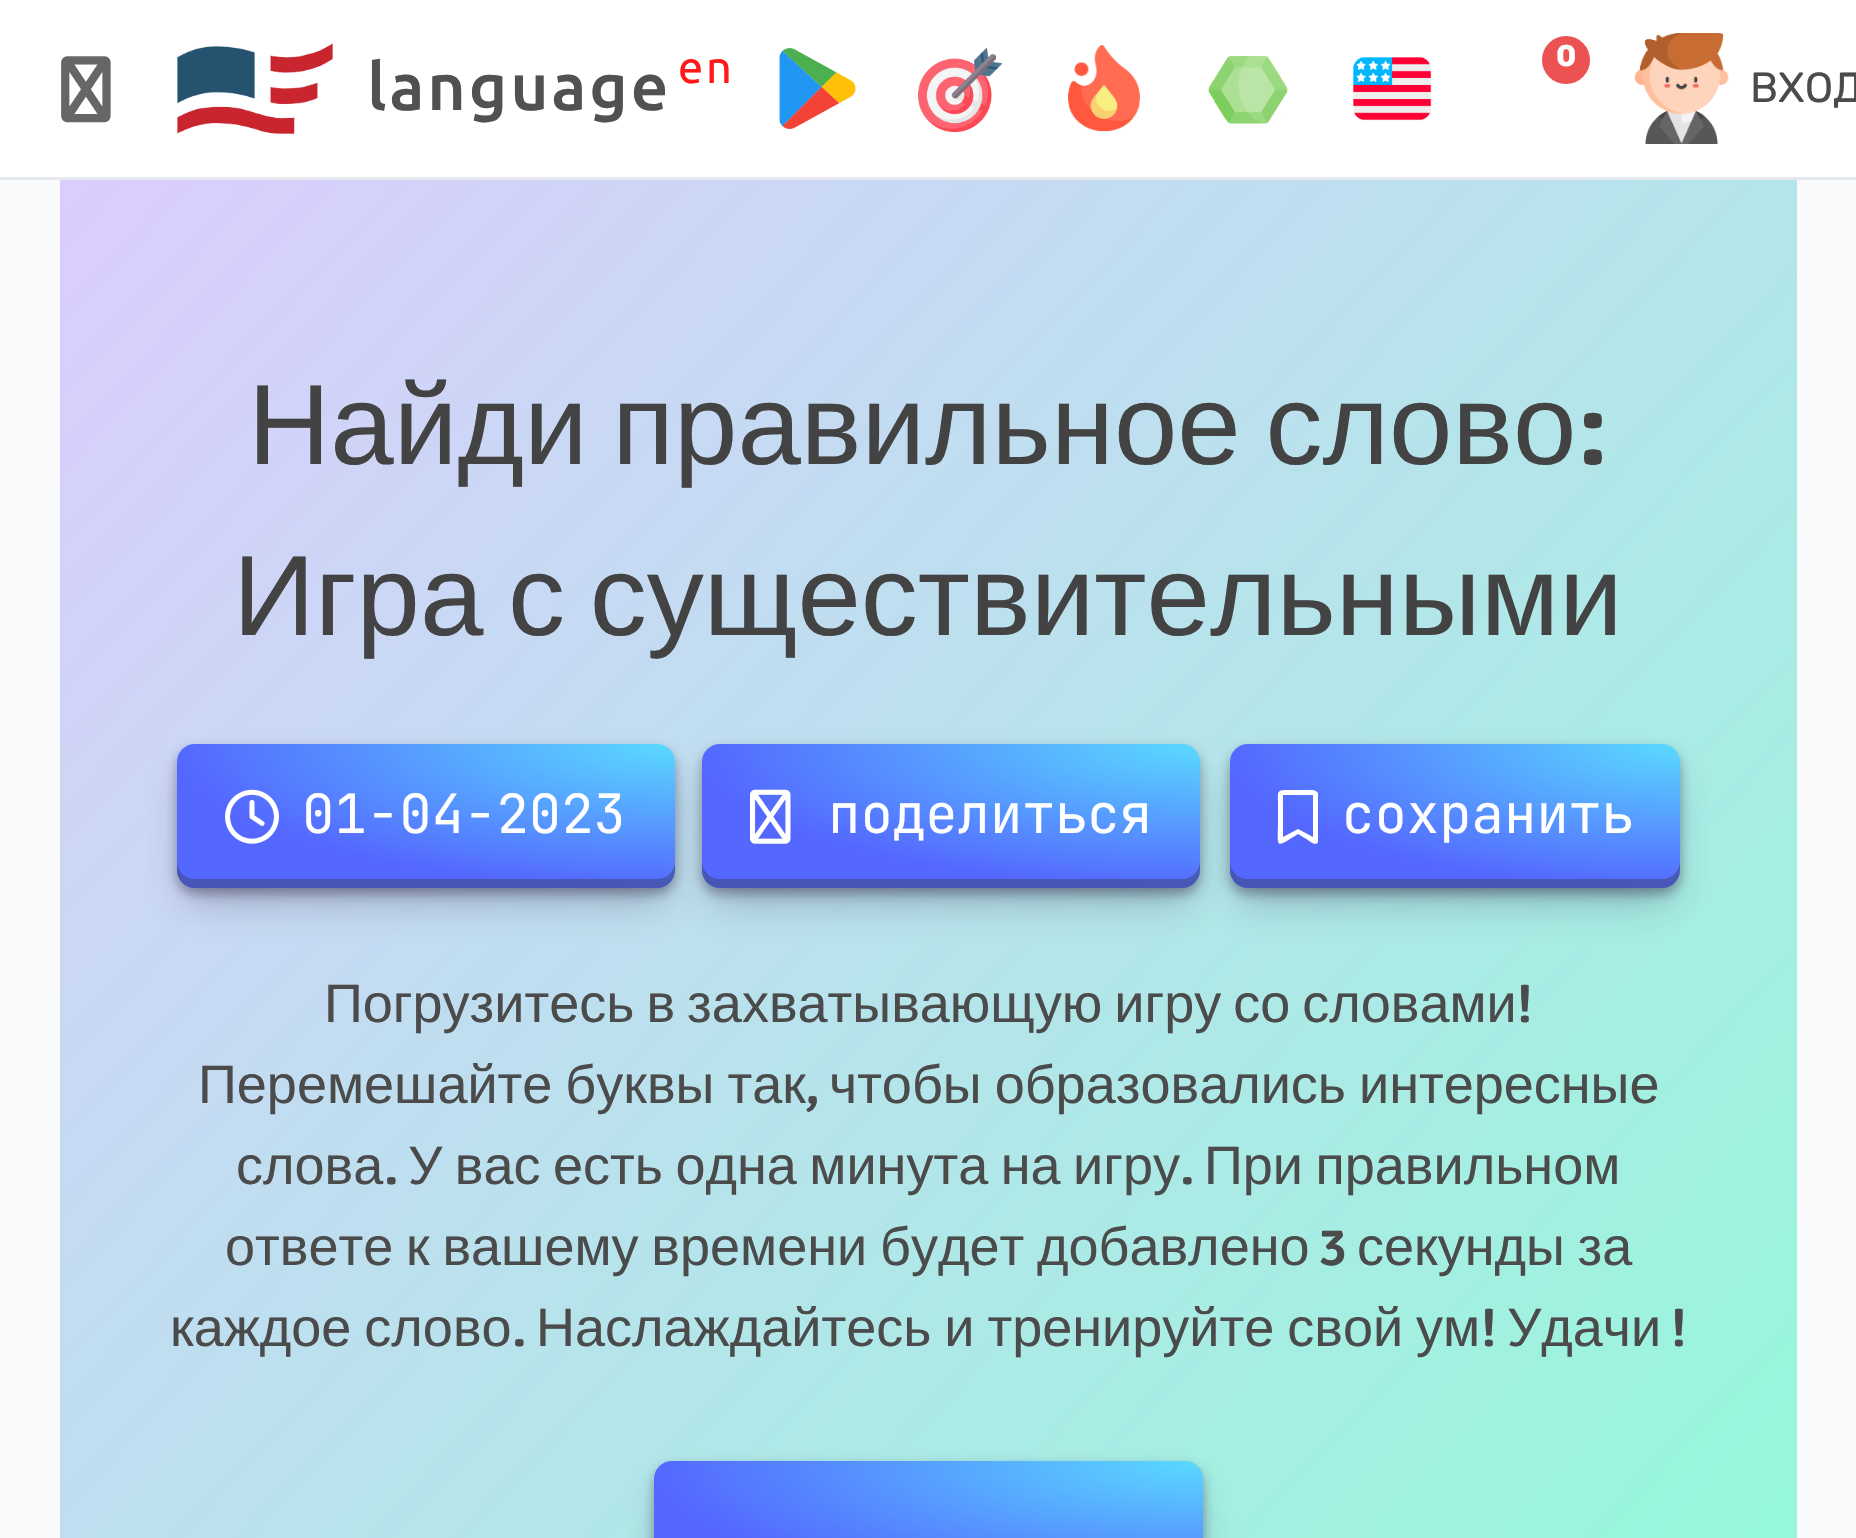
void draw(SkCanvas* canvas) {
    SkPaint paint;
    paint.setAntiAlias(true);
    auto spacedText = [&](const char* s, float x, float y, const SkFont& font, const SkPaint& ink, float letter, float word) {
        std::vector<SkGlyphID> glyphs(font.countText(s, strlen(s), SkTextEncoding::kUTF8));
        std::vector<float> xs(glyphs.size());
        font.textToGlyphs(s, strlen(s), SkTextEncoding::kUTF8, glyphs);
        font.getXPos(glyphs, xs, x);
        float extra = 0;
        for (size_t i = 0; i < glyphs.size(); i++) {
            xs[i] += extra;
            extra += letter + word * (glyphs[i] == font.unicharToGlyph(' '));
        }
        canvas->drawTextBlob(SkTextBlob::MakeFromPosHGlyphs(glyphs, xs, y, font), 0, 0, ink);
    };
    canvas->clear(0xFFF9FAFB);
    paint.setColor(0xFFFFFFFF);
    canvas->drawRect(SkRect::MakeXYWH(0, 0, 1856, 177), paint);
    paint.setColor(0xFFE5E9EF);
    canvas->drawRect(SkRect::MakeXYWH(0, 177, 1856, 3), paint);
    canvas->drawImageRect(SkImages::DeferredFromEncodedData(SkData::MakeFromFileName("img1.png")), SkRect::MakeXYWH(61, 56, 50, 67), SkSamplingOptions());
    canvas->drawImageRect(SkImages::DeferredFromEncodedData(SkData::MakeFromFileName("img2.png")), SkRect::MakeXYWH(177, 43, 156, 91), SkSamplingOptions());
    SkFont font1(fontMgr->matchFamilyStyle("Ubuntu", SkFontStyle(500, SkFontStyle::kNormal_Width, SkFontStyle::kUpright_Slant)), 66);
    font1.setSubpixel(true);
    paint.setColor(0xFF515151);
    spacedText("language", 367, 110, font1, paint, 2.75f, 0);
    SkFont font2(fontMgr->matchFamilyStyle("Ubuntu", SkFontStyle::Normal()), 45);
    font2.setSubpixel(true);
    paint.setColor(0xFFFF1919);
    spacedText("en", 678, 83, font2, paint, 2.75f, 0);
    canvas->drawImageRect(SkImages::DeferredFromEncodedData(SkData::MakeFromFileName("img3.png")), SkRect::MakeXYWH(779, 48, 77, 81), SkSamplingOptions());
    canvas->drawImageRect(SkImages::DeferredFromEncodedData(SkData::MakeFromFileName("img4.png")), SkRect::MakeXYWH(918, 48, 84, 84), SkSamplingOptions());
    canvas->drawImageRect(SkImages::DeferredFromEncodedData(SkData::MakeFromFileName("img5.png")), SkRect::MakeXYWH(1068, 45, 72, 87), SkSamplingOptions());
    canvas->drawImageRect(SkImages::DeferredFromEncodedData(SkData::MakeFromFileName("img6.png")), SkRect::MakeXYWH(1208, 56, 80, 68), SkSamplingOptions());
    canvas->drawImageRect(SkImages::DeferredFromEncodedData(SkData::MakeFromFileName("img7.png")), SkRect::MakeXYWH(1352, 57, 80, 64), SkSamplingOptions());
    paint.setColor(0xFFEC5252);
    canvas->drawCircle(1566, 60, 24, paint);
    SkFont font3(fontMgr->matchFamilyStyle("Rubik", SkFontStyle::Bold()), 30);
    font3.setSubpixel(true);
    paint.setColor(0xFFFFFFFF);
    canvas->drawString("0", 1556, 66, font3, paint);
    canvas->drawImageRect(SkImages::DeferredFromEncodedData(SkData::MakeFromFileName("img8.png")), SkRect::MakeXYWH(1634, 33, 95, 111), SkSamplingOptions());
    SkFont font4(fontMgr->matchFamilyStyle("Rubik", SkFontStyle::Normal()), 42);
    font4.setSubpixel(true);
    paint.setColor(0xFF4B4B4B);
    canvas->drawString("ВХОД", 1750, 102, font4, paint);
    {
        const SkColor colors[] = {0xFFDECBFF, 0xFF8EFCD7};
        const float stops[] = {0, 1};
        const SkPoint ends[] = {{18, 105}, {1839, 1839}};
        paint.setShader(SkGradientShader::MakeLinear(ends, colors, stops, 2, SkTileMode::kClamp));
        paint.setAlpha(255);
    }
    canvas->drawRect(SkRect::MakeXYWH(60, 180, 1737, 1358), paint);
    SkFont font5(fontMgr->matchFamilyStyle("Liberation Sans", SkFontStyle::Normal()), 114);
    font5.setSubpixel(true);
    paint.setShader(nullptr);
    paint.setColor(0xFF434343);
    spacedText("Найди правильное слово", 248, 464, font5, paint, 0, -7);
    SkFont font6(fontMgr->matchFamilyStyle("Signika Negative", SkFontStyle(600, SkFontStyle::kNormal_Width, SkFontStyle::kUpright_Slant)), 114);
    font6.setSubpixel(true);
    canvas->drawString(":", 1577, 464, font6, paint);
    spacedText("Игра с существительными", 233, 635, font5, paint, 0, -7);
    paint.setColor(0x4D2D2342);
    paint.setMaskFilter(SkMaskFilter::MakeBlur(kNormal_SkBlurStyle, 19.5f));
    canvas->drawRoundRect(SkRect::MakeXYWH(186, 774, 480, 126), 9, 9, paint);
    paint.setMaskFilter(nullptr);
    paint.setColor(0x662D2342);
    paint.setMaskFilter(SkMaskFilter::MakeBlur(kNormal_SkBlurStyle, 6));
    canvas->drawRoundRect(SkRect::MakeXYWH(177, 750, 498, 144), 18, 18, paint);
    paint.setMaskFilter(nullptr);
    {
        const SkColor colors[] = {0xFF5ADAFF, 0xFF5468FF};
        const float stops[] = {0, 1};
        SkMatrix m = SkMatrix::Translate(675, 744).preScale(498, 144);
        paint.setShader(SkGradientShader::MakeRadial({0, 0}, 1, colors, stops, 2, SkTileMode::kClamp, 0, &m));
        paint.setAlpha(255);
    }
    canvas->drawRoundRect(SkRect::MakeXYWH(177, 744, 498, 144), 18, 18, paint);
    paint.setShader(nullptr);
    paint.setColor(0x803A416F);
    canvas->drawPath(SkPathBuilder().moveTo(177, 861).lineTo(177, 870).cubicTo(177, 880, 185, 888, 195, 888).lineTo(657, 888).cubicTo(667, 888, 675, 880, 675, 870).lineTo(675, 861).cubicTo(675, 871, 667, 879, 657, 879).lineTo(195, 879).cubicTo(185, 879, 177, 871, 177, 861).close().detach(), paint);
    canvas->drawImageRect(SkImages::DeferredFromEncodedData(SkData::MakeFromFileName("img9.png")), SkRect::MakeXYWH(225, 789, 54, 55), SkSamplingOptions());
    SkFont font7(fontMgr->matchFamilyStyle("JetBrains Mono", SkFontStyle::Normal()), 54);
    font7.setSubpixel(true);
    paint.setColor(0xFFFFFFFF);
    canvas->drawString("01-04-2023", 302, 833, font7, paint);
    paint.setColor(0x4D2D2342);
    paint.setMaskFilter(SkMaskFilter::MakeBlur(kNormal_SkBlurStyle, 19.5f));
    canvas->drawRoundRect(SkRect::MakeXYWH(711, 774, 480, 126), 9, 9, paint);
    paint.setMaskFilter(nullptr);
    paint.setColor(0x662D2342);
    paint.setMaskFilter(SkMaskFilter::MakeBlur(kNormal_SkBlurStyle, 6));
    canvas->drawRoundRect(SkRect::MakeXYWH(702, 750, 498, 144), 18, 18, paint);
    paint.setMaskFilter(nullptr);
    {
        const SkColor colors[] = {0xFF5ADAFF, 0xFF5468FF};
        const float stops[] = {0, 1};
        SkMatrix m = SkMatrix::Translate(1200, 744).preScale(498, 144);
        paint.setShader(SkGradientShader::MakeRadial({0, 0}, 1, colors, stops, 2, SkTileMode::kClamp, 0, &m));
        paint.setAlpha(255);
    }
    canvas->drawRoundRect(SkRect::MakeXYWH(702, 744, 498, 144), 18, 18, paint);
    paint.setShader(nullptr);
    paint.setColor(0x803A416F);
    canvas->drawPath(SkPathBuilder().moveTo(702, 861).lineTo(702, 870).cubicTo(702, 880, 710, 888, 720, 888).lineTo(1182, 888).cubicTo(1192, 888, 1200, 880, 1200, 870).lineTo(1200, 861).cubicTo(1200, 871, 1192, 879, 1182, 879).lineTo(720, 879).cubicTo(710, 879, 702, 871, 702, 861).close().detach(), paint);
    canvas->drawImageRect(SkImages::DeferredFromEncodedData(SkData::MakeFromFileName("img10.png")), SkRect::MakeXYWH(750, 789, 41, 55), SkSamplingOptions());
    paint.setColor(0xFFFFFFFF);
    canvas->drawString("поделиться", 828, 833, font7, paint);
    paint.setColor(0x4D2D2342);
    paint.setMaskFilter(SkMaskFilter::MakeBlur(kNormal_SkBlurStyle, 19.5f));
    canvas->drawRoundRect(SkRect::MakeXYWH(1239, 774, 432, 126), 9, 9, paint);
    paint.setMaskFilter(nullptr);
    paint.setColor(0x662D2342);
    paint.setMaskFilter(SkMaskFilter::MakeBlur(kNormal_SkBlurStyle, 6));
    canvas->drawRoundRect(SkRect::MakeXYWH(1230, 750, 450, 144), 18, 18, paint);
    paint.setMaskFilter(nullptr);
    {
        const SkColor colors[] = {0xFF5ADAFF, 0xFF5468FF};
        const float stops[] = {0, 1};
        SkMatrix m = SkMatrix::Translate(1680, 744).preScale(450, 144);
        paint.setShader(SkGradientShader::MakeRadial({0, 0}, 1, colors, stops, 2, SkTileMode::kClamp, 0, &m));
        paint.setAlpha(255);
    }
    canvas->drawRoundRect(SkRect::MakeXYWH(1230, 744, 450, 144), 18, 18, paint);
    paint.setShader(nullptr);
    paint.setColor(0x803A416F);
    canvas->drawPath(SkPathBuilder().moveTo(1230, 861).lineTo(1230, 870).cubicTo(1230, 880, 1238, 888, 1248, 888).lineTo(1662, 888).cubicTo(1672, 888, 1680, 880, 1680, 870).lineTo(1680, 861).cubicTo(1680, 871, 1672, 879, 1662, 879).lineTo(1248, 879).cubicTo(1238, 879, 1230, 871, 1230, 861).close().detach(), paint);
    paint.setColor(0xFFFFFFFF);
    canvas->drawPath(SkPathBuilder().moveTo(1313, 790).lineTo(1288, 790).cubicTo(1277, 790, 1278, 791, 1278, 802).lineTo(1278, 818).cubicTo(1278, 849, 1274, 849, 1298, 834).lineTo(1308, 840).cubicTo(1310, 842, 1318, 847, 1318, 841).lineTo(1318, 793).lineTo(1316, 791).close().moveTo(1313, 837).lineTo(1298, 829).lineTo(1283, 837).lineTo(1283, 795).lineTo(1284, 795).lineTo(1313, 795).close().detach(), paint);
    canvas->drawString("сохранить", 1342, 833, font7, paint);
    SkFont font8(fontMgr->matchFamilyStyle("Liberation Sans", SkFontStyle::Normal()), 54);
    font8.setSubpixel(true);
    paint.setColor(0xFF4B4B4B);
    spacedText("Погрузитесь в захватывающую игру со словами", 324, 1022, font8, paint, 0, -3);
    SkFont font9(fontMgr->matchFamilyStyle("Signika Negative", SkFontStyle(600, SkFontStyle::kNormal_Width, SkFontStyle::kUpright_Slant)), 54);
    font9.setSubpixel(true);
    canvas->drawString("!", 1517, 1022, font9, paint);
    spacedText("Перемешайте буквы так", 198, 1103, font8, paint, 0, -2);
    canvas->drawString(",", 805, 1103, font9, paint);
    spacedText("чтобы образовались интересные", 829, 1103, font8, paint, 0, -2);
    canvas->drawString("слова", 236, 1184, font8, paint);
    canvas->drawString(".", 384, 1184, font9, paint);
    spacedText("У вас есть одна минута на игру", 408, 1184, font8, paint, 0, -2.5f);
    canvas->drawString(".", 1180, 1184, font9, paint);
    spacedText("При правильном", 1204, 1184, font8, paint, 0, -2.5f);
    spacedText("ответе к вашему времени будет добавлено", 225, 1265, font8, paint, 0, -2.25f);
    canvas->drawString("3", 1318, 1265, font9, paint);
    spacedText("секунды за", 1357, 1265, font8, paint, 0, -2.25f);
    spacedText("каждое слово", 170, 1346, font8, paint, 0, -2);
    canvas->drawString(".", 512, 1346, font9, paint);
    spacedText("Наслаждайтесь и тренируйте свой ум", 536, 1346, font8, paint, 0, -2);
    canvas->drawString("!", 1481, 1346, font9, paint);
    canvas->drawString("Удачи", 1507, 1346, font8, paint);
    canvas->drawString("!", 1671, 1346, font9, paint);
    paint.setColor(0x4D2D2342);
    paint.setMaskFilter(SkMaskFilter::MakeBlur(kNormal_SkBlurStyle, 19.5f));
    canvas->drawRoundRect(SkRect::MakeXYWH(663, 1491, 531, 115), 9, 9, paint);
    paint.setMaskFilter(nullptr);
    paint.setColor(0x662D2342);
    paint.setMaskFilter(SkMaskFilter::MakeBlur(kNormal_SkBlurStyle, 6));
    canvas->drawRoundRect(SkRect::MakeXYWH(654, 1467, 549, 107), 18, 18, paint);
    paint.setMaskFilter(nullptr);
    {
        const SkColor colors[] = {0xFF5ADAFF, 0xFF5468FF};
        const float stops[] = {0, 1};
        SkMatrix m = SkMatrix::Translate(1203, 1461).preScale(549, 144);
        paint.setShader(SkGradientShader::MakeRadial({0, 0}, 1, colors, stops, 2, SkTileMode::kClamp, 0, &m));
        paint.setAlpha(255);
    }
    canvas->drawRoundRect(SkRect::MakeXYWH(654, 1461, 549, 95), 18, 18, paint);
}
